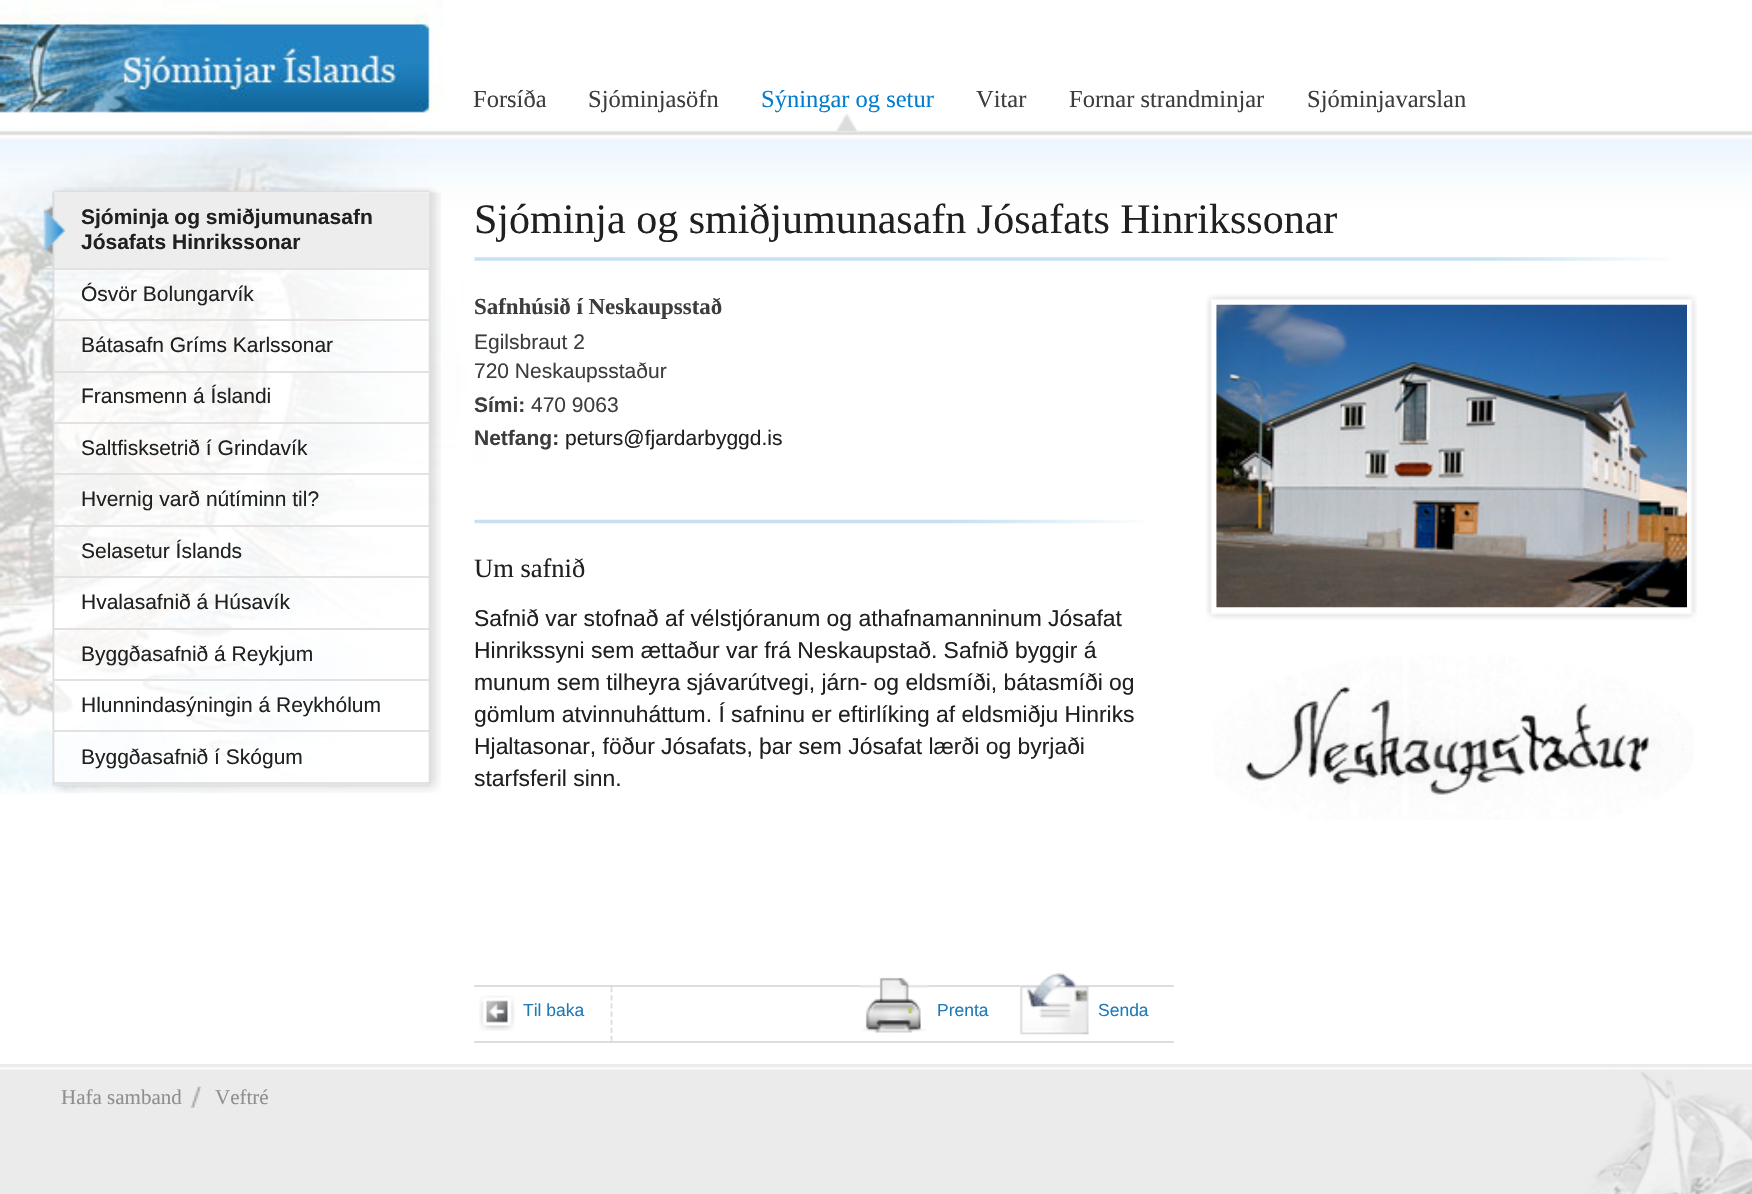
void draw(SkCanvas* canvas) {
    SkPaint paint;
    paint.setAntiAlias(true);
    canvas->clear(0xFFEBEBEB);
    paint.setColor(0xFFFFFFFF);
    canvas->drawRect(SkRect::MakeXYWH(0, 795, 1752, 269), paint);
    canvas->drawImageRect(SkImages::DeferredFromEncodedData(SkData::MakeFromFileName("img1.png")), SkRect::MakeXYWH(0, 0, 1752, 795), SkSamplingOptions());
    SkFont font1(fontMgr->matchFamilyStyle("Liberation Serif", SkFontStyle::Normal()), 24.5f);
    font1.setSubpixel(true);
    paint.setColor(0xFF3C3E3D);
    canvas->drawString("Forsíða", 473, 107, font1, paint);
    canvas->drawString("Sjóminjasöfn", 588, 107, font1, paint);
    canvas->drawImageRect(SkImages::DeferredFromEncodedData(SkData::MakeFromFileName("img2.png")), SkRect::MakeXYWH(836, 114, 22, 17), SkSamplingOptions());
    paint.setColor(0xFF037DD0);
    canvas->drawString("Sýningar og setur", 761, 107, font1, paint);
    paint.setColor(0xFF3C3E3D);
    canvas->drawString("Vitar", 976, 107, font1, paint);
    canvas->drawString("Fornar strandminjar", 1069, 107, font1, paint);
    canvas->drawString("Sjóminjavarslan", 1307, 107, font1, paint);
    canvas->drawImageRect(SkImages::DeferredFromEncodedData(SkData::MakeFromFileName("img3.png")), SkRect::MakeXYWH(52, 187, 385, 6), SkSamplingOptions());
    canvas->drawImageRect(SkImages::DeferredFromEncodedData(SkData::MakeFromFileName("img4.png")), SkRect::MakeXYWH(52, 192, 389, 601), SkSamplingOptions());
    canvas->drawImageRect(SkImages::DeferredFromEncodedData(SkData::MakeFromFileName("img5.png")), SkRect::MakeXYWH(43, 192, 386, 76), SkSamplingOptions());
    paint.setColor(0xFFE3E1E1);
    canvas->drawRect(SkRect::MakeXYWH(44, 268, 385, 2), paint);
    SkFont font2(fontMgr->matchFamilyStyle("Liberation Sans", SkFontStyle::Bold()), 21);
    font2.setSubpixel(true);
    paint.setColor(0xFF1F201F);
    canvas->drawString("Sjóminja og smiðjumunasafn", 81, 224, font2, paint);
    canvas->drawString("Jósafats Hinrikssonar", 81, 249, font2, paint);
    paint.setColor(0xFFE3E1E1);
    canvas->drawRect(SkRect::MakeXYWH(54, 319, 375, 2), paint);
    SkFont font3(fontMgr->matchFamilyStyle("Liberation Sans", SkFontStyle::Normal()), 21);
    font3.setSubpixel(true);
    paint.setColor(0xFF1F201F);
    canvas->drawString("Ósvör Bolungarvík", 81, 301, font3, paint);
    paint.setColor(0xFFE3E1E1);
    canvas->drawRect(SkRect::MakeXYWH(54, 371, 375, 2), paint);
    paint.setColor(0xFF1F201F);
    canvas->drawString("Bátasafn Gríms Karlssonar", 81, 352, font3, paint);
    paint.setColor(0xFFE3E1E1);
    canvas->drawRect(SkRect::MakeXYWH(54, 422, 375, 2), paint);
    paint.setColor(0xFF1F201F);
    canvas->drawString("Fransmenn á Íslandi", 81, 403, font3, paint);
    paint.setColor(0xFFE3E1E1);
    canvas->drawRect(SkRect::MakeXYWH(54, 473, 375, 2), paint);
    paint.setColor(0xFF1F201F);
    canvas->drawString("Saltfisksetrið í Grindavík", 81, 455, font3, paint);
    paint.setColor(0xFFE3E1E1);
    canvas->drawRect(SkRect::MakeXYWH(54, 525, 375, 2), paint);
    paint.setColor(0xFF1F201F);
    canvas->drawString("Hvernig varð nútíminn til?", 81, 506, font3, paint);
    paint.setColor(0xFFE3E1E1);
    canvas->drawRect(SkRect::MakeXYWH(54, 576, 375, 2), paint);
    paint.setColor(0xFF1F201F);
    canvas->drawString("Selasetur Íslands", 81, 558, font3, paint);
    paint.setColor(0xFFE3E1E1);
    canvas->drawRect(SkRect::MakeXYWH(54, 628, 375, 2), paint);
    paint.setColor(0xFF1F201F);
    canvas->drawString("Hvalasafnið á Húsavík", 81, 609, font3, paint);
    paint.setColor(0xFFE3E1E1);
    canvas->drawRect(SkRect::MakeXYWH(54, 679, 375, 2), paint);
    paint.setColor(0xFF1F201F);
    canvas->drawString("Byggðasafnið á Reykjum", 81, 661, font3, paint);
    paint.setColor(0xFFE3E1E1);
    canvas->drawRect(SkRect::MakeXYWH(54, 730, 375, 2), paint);
    paint.setColor(0xFF1F201F);
    canvas->drawString("Hlunnindasýningin á Reykhólum", 81, 712, font3, paint);
    paint.setColor(0xFFE3E1E1);
    canvas->drawRect(SkRect::MakeXYWH(54, 782, 375, 2), paint);
    paint.setColor(0xFF1F201F);
    canvas->drawString("Byggðasafnið í Skógum", 81, 764, font3, paint);
    canvas->drawImageRect(SkImages::DeferredFromEncodedData(SkData::MakeFromFileName("img6.png")), SkRect::MakeXYWH(474, 257, 1195, 4), SkSamplingOptions());
    SkFont font4(fontMgr->matchFamilyStyle("Liberation Serif", SkFontStyle::Normal()), 42);
    font4.setSubpixel(true);
    canvas->drawString("Sjóminja og smiðjumunasafn Jósafats Hinrikssonar", 474, 233, font4, paint);
    canvas->drawImageRect(SkImages::DeferredFromEncodedData(SkData::MakeFromFileName("img7.png")), SkRect::MakeXYWH(474, 519, 670, 5), SkSamplingOptions());
    SkFont font5(fontMgr->matchFamilyStyle("Liberation Serif", SkFontStyle::Bold()), 22.9f);
    font5.setSubpixel(true);
    paint.setColor(0xFF3C3E3D);
    canvas->drawString("Safnhúsið í Neskaupsstað", 474, 314, font5, paint);
    canvas->drawString("Egilsbraut 2", 474, 349, font3, paint);
    canvas->drawString("720 Neskaupsstaður", 474, 378, font3, paint);
    canvas->drawString("Sími:", 474, 412, font2, paint);
    canvas->drawString("470 9063", 531, 412, font3, paint);
    canvas->drawString("Netfang:", 474, 445, font2, paint);
    paint.setColor(0xFF1F201F);
    canvas->drawString("peturs@fjardarbyggd.is", 565, 445, font3, paint);
    canvas->drawImageRect(SkImages::DeferredFromEncodedData(SkData::MakeFromFileName("img8.png")), SkRect::MakeXYWH(1206, 294, 491, 328), SkSamplingOptions());
    canvas->drawImageRect(SkImages::DeferredFromEncodedData(SkData::MakeFromFileName("img9.png")), SkRect::MakeXYWH(1206, 612, 491, 9), SkSamplingOptions());
    canvas->drawImageRect(SkImages::DeferredFromEncodedData(SkData::MakeFromFileName("img10.png")), SkRect::MakeXYWH(1216, 304, 471, 304), SkSamplingOptions());
    SkFont font6(fontMgr->matchFamilyStyle("Liberation Serif", SkFontStyle::Normal()), 26.5f);
    font6.setSubpixel(true);
    canvas->drawString("Um safnið", 474, 577, font6, paint);
    SkFont font7(fontMgr->matchFamilyStyle("Liberation Sans", SkFontStyle::Normal()), 22.9f);
    font7.setSubpixel(true);
    canvas->drawString("Safnið var stofnað af vélstjóranum og athafnamanninum Jósafat", 474, 626, font7, paint);
    canvas->drawString("Hinrikssyni sem ættaður var frá Neskaupstað. Safnið byggir á", 474, 658, font7, paint);
    canvas->drawString("munum sem tilheyra sjávarútvegi, járn- og eldsmíði, bátasmíði og", 474, 690, font7, paint);
    canvas->drawString("gömlum atvinnuháttum. Í safninu er eftirlíking af eldsmiðju Hinriks", 474, 722, font7, paint);
    canvas->drawString("Hjaltasonar, föður Jósafats, þar sem Jósafat lærði og byrjaði", 474, 754, font7, paint);
    canvas->drawString("starfsferil sinn.", 474, 786, font7, paint);
    canvas->drawImageRect(SkImages::DeferredFromEncodedData(SkData::MakeFromFileName("img11.png")), SkRect::MakeXYWH(1213, 655, 481, 165), SkSamplingOptions());
    paint.setColor(0xFFDDDDDD);
    canvas->drawRect(SkRect::MakeXYWH(474, 985, 700, 2), paint);
    canvas->drawRect(SkRect::MakeXYWH(474, 1041, 700, 2), paint);
    canvas->drawImageRect(SkImages::DeferredFromEncodedData(SkData::MakeFromFileName("img12.png")), SkRect::MakeXYWH(479, 995, 36, 36), SkSamplingOptions());
    paint.setStyle(SkPaint::kStroke_Style);
    paint.setStrokeWidth(1.8f);
    paint.setPathEffect(SkDashPathEffect::Make({{5.25f, 2.92f}}, 0));
    canvas->drawPath(SkPathBuilder().moveTo(611.5f, 987).lineTo(611.5f, 1041).detach(), paint);
    paint.setPathEffect(nullptr);
    SkFont font8(fontMgr->matchFamilyStyle("Liberation Sans", SkFontStyle::Normal()), 17.5f);
    font8.setSubpixel(true);
    paint.setStyle(SkPaint::kFill_Style);
    paint.setColor(0xFF1E7BB7);
    canvas->drawString("Til baka", 523, 1016, font8, paint);
    canvas->drawImageRect(SkImages::DeferredFromEncodedData(SkData::MakeFromFileName("img13.png")), SkRect::MakeXYWH(861, 977, 68, 56), SkSamplingOptions());
    canvas->drawString("Prenta", 937, 1016, font8, paint);
    canvas->drawImageRect(SkImages::DeferredFromEncodedData(SkData::MakeFromFileName("img14.png")), SkRect::MakeXYWH(1020, 973, 69, 62), SkSamplingOptions());
    canvas->drawString("Senda", 1098, 1016, font8, paint);
    canvas->drawImageRect(SkImages::DeferredFromEncodedData(SkData::MakeFromFileName("img15.png")), SkRect::MakeXYWH(0, 1067, 1752, 127), SkSamplingOptions());
    SkFont font9(fontMgr->matchFamilyStyle("Liberation Serif", SkFontStyle::Normal()), 21);
    font9.setSubpixel(true);
    paint.setColor(0xFF918E8E);
    canvas->drawString("Hafa samband", 61, 1104, font9, paint);
    canvas->drawImageRect(SkImages::DeferredFromEncodedData(SkData::MakeFromFileName("img16.png")), SkRect::MakeXYWH(190, 1086, 12, 22), SkSamplingOptions());
    canvas->drawString("Veftré", 215, 1104, font9, paint);
}
